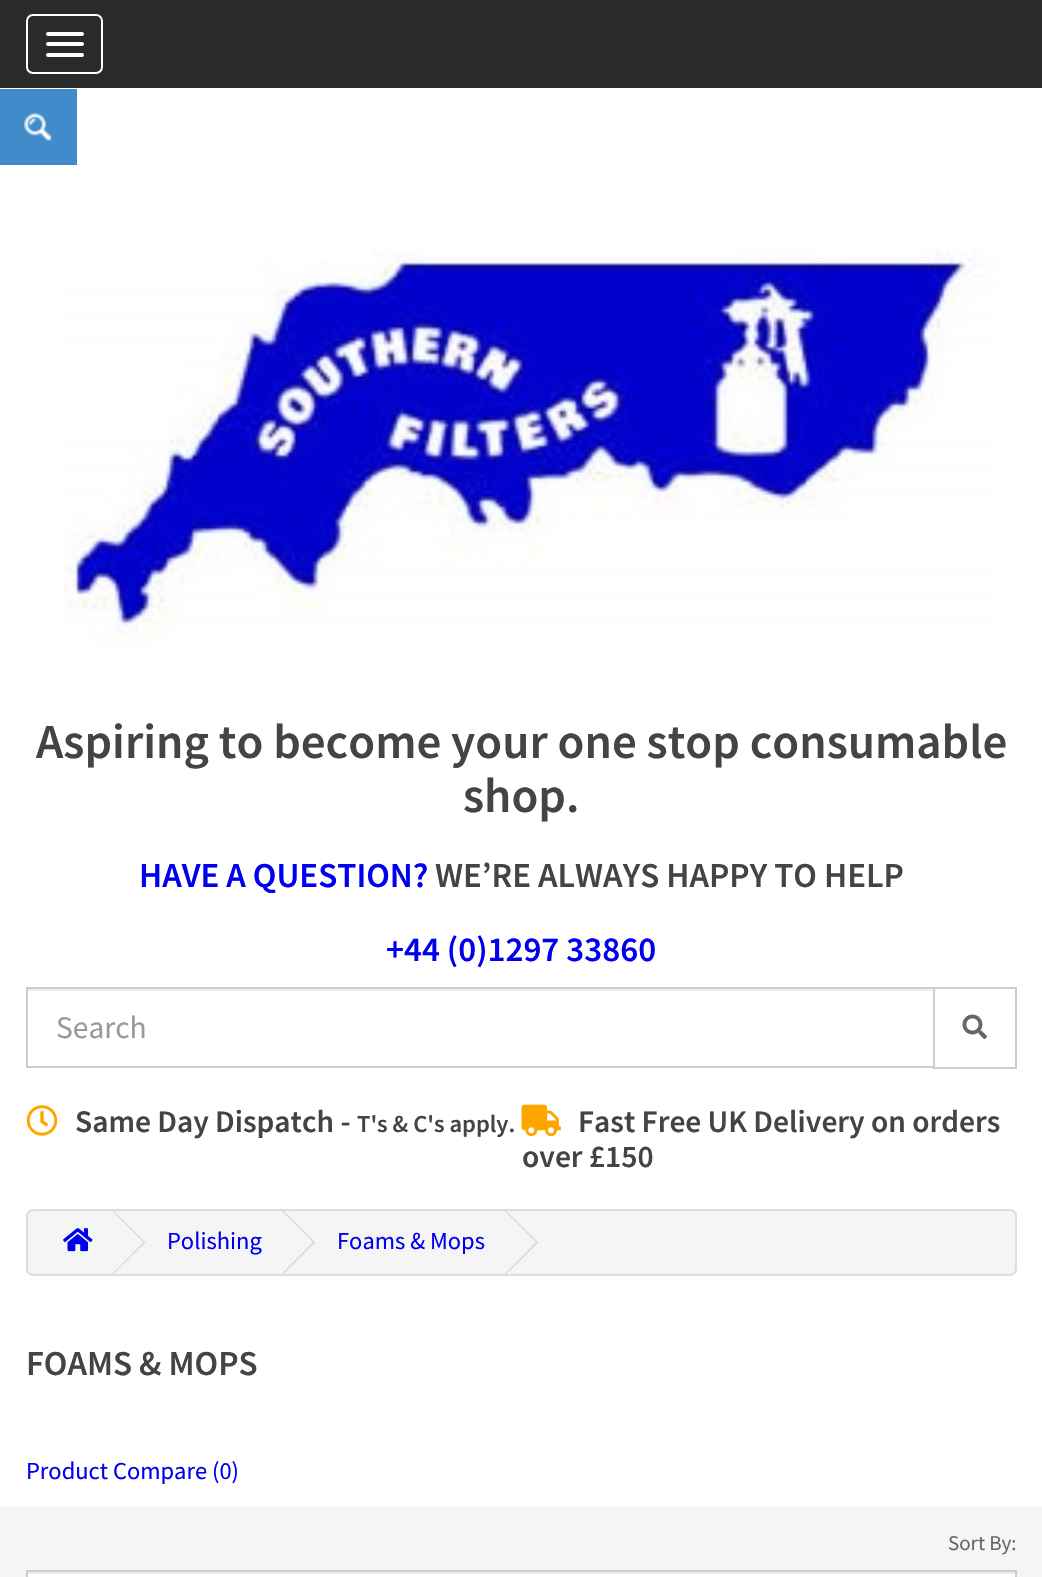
void draw(SkCanvas* canvas) {
    SkPaint paint;
    paint.setAntiAlias(true);
    canvas->clear(0xFFFFFFFF);
    paint.setColor(0xFF2A2A2A);
    canvas->drawRect(SkRect::MakeXYWH(0, 0, 1042, 88), paint);
    paint.setStyle(SkPaint::kStroke_Style);
    paint.setStrokeWidth(2);
    paint.setColor(0xFFFFFFFF);
    canvas->drawRoundRect(SkRect::MakeXYWH(27, 15, 75, 58), 6, 6, paint);
    paint.setStyle(SkPaint::kFill_Style);
    canvas->drawRoundRect(SkRect::MakeXYWH(46, 32, 38, 4), 2, 2, paint);
    canvas->drawRoundRect(SkRect::MakeXYWH(46, 42, 38, 4), 2, 2, paint);
    canvas->drawRoundRect(SkRect::MakeXYWH(46, 53, 38, 4), 2, 2, paint);
    paint.setColor(0xFF428BCA);
    canvas->drawRect(SkRect::MakeXYWH(0, 89, 77, 76), paint);
    canvas->drawImageRect(SkImages::DeferredFromEncodedData(SkData::MakeFromFileName("img1.png")), SkRect::MakeXYWH(24, 113, 28, 28), SkSamplingOptions());
    canvas->drawImageRect(SkImages::DeferredFromEncodedData(SkData::MakeFromFileName("img2.png")), SkRect::MakeXYWH(64, 249, 934, 401), SkSamplingOptions());
    SkFont font1(fontMgr->matchFamilyStyle("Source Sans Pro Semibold", SkFontStyle(600, SkFontStyle::kNormal_Width, SkFontStyle::kUpright_Slant)), 49);
    font1.setSubpixel(true);
    paint.setColor(0xFF444444);
    canvas->drawString("Aspiring to become your one stop consumable", 36, 758, font1, paint);
    canvas->drawString("shop.", 463, 812, font1, paint);
    SkFont font2(fontMgr->matchFamilyStyle("Source Sans Pro Semibold", SkFontStyle(600, SkFontStyle::kNormal_Width, SkFontStyle::kUpright_Slant)), 35);
    font2.setSubpixel(true);
    paint.setColor(0xFF0000EE);
    canvas->drawString("HAVE A QUESTION?", 139, 887, font2, paint);
    paint.setColor(0xFF444444);
    canvas->drawString("WE’RE ALWAYS HAPPY TO HELP", 435, 887, font2, paint);
    paint.setColor(0xFF0000EE);
    canvas->drawString("+44 (0)1297 33860", 386, 961, font2, paint);
    paint.setColor(0xFFECECEC);
    canvas->drawRect(SkRect::MakeXYWH(28, 989, 905, 2), paint);
    paint.setStyle(SkPaint::kStroke_Style);
    paint.setColor(0xFFCCCCCC);
    canvas->drawRect(SkRect::MakeXYWH(27, 988, 907, 79), paint);
    SkFont font3(fontMgr->matchFamilyStyle("Source Sans Pro", SkFontStyle::Normal()), 31.5f);
    font3.setSubpixel(true);
    paint.setStyle(SkPaint::kFill_Style);
    paint.setColor(0xFF999999);
    canvas->drawString("Search", 56, 1038, font3, paint);
    paint.setStyle(SkPaint::kStroke_Style);
    paint.setColor(0xFFCCCCCC);
    canvas->drawRect(SkRect::MakeXYWH(934, 988, 82, 80), paint);
    canvas->drawImageRect(SkImages::DeferredFromEncodedData(SkData::MakeFromFileName("img3.png")), SkRect::MakeXYWH(962, 1014, 25, 25), SkSamplingOptions());
    canvas->drawImageRect(SkImages::DeferredFromEncodedData(SkData::MakeFromFileName("img4.png")), SkRect::MakeXYWH(26, 1105, 32, 31), SkSamplingOptions());
    SkFont font4(fontMgr->matchFamilyStyle("Source Sans Pro Semibold", SkFontStyle(600, SkFontStyle::kNormal_Width, SkFontStyle::kUpright_Slant)), 31.5f);
    font4.setSubpixel(true);
    paint.setStyle(SkPaint::kFill_Style);
    paint.setColor(0xFF444444);
    canvas->drawString("Same Day Dispatch -", 75, 1132, font4, paint);
    SkFont font5(fontMgr->matchFamilyStyle("Source Sans Pro Semibold", SkFontStyle(600, SkFontStyle::kNormal_Width, SkFontStyle::kUpright_Slant)), 24.5f);
    font5.setSubpixel(true);
    canvas->drawString("T's & C's apply.", 357, 1132, font5, paint);
    canvas->drawImageRect(SkImages::DeferredFromEncodedData(SkData::MakeFromFileName("img5.png")), SkRect::MakeXYWH(521, 1104, 40, 33), SkSamplingOptions());
    canvas->drawString("Fast Free UK Delivery on orders", 578, 1132, font4, paint);
    canvas->drawString("over £150", 522, 1167, font4, paint);
    paint.setColor(0xFFF5F5F5);
    canvas->drawRoundRect(SkRect::MakeXYWH(27, 1210, 989, 65), 6, 6, paint);
    paint.setStyle(SkPaint::kStroke_Style);
    paint.setColor(0xFFDDDDDD);
    canvas->drawRoundRect(SkRect::MakeXYWH(27, 1210, 989, 65), 6, 6, paint);
    canvas->drawImageRect(SkImages::DeferredFromEncodedData(SkData::MakeFromFileName("img6.png")), SkRect::MakeXYWH(63, 1228, 30, 24), SkSamplingOptions());
    paint.setStyle(SkPaint::kFill_Style);
    canvas->drawPath(SkPathBuilder().moveTo(112.5f, 1211.5f).lineTo(113.5f, 1210.5f).lineTo(145.5f, 1242.5f).lineTo(144.5f, 1243.5f).close().detach(), paint);
    canvas->drawPath(SkPathBuilder().moveTo(112.5f, 1273.5f).lineTo(144.5f, 1241).lineTo(145.5f, 1242.5f).lineTo(113.5f, 1274.5f).close().detach(), paint);
    SkFont font6(fontMgr->matchFamilyStyle("Source Sans Pro", SkFontStyle::Normal()), 24.5f);
    font6.setSubpixel(true);
    paint.setColor(0xFF0000EE);
    canvas->drawString("Polishing", 167, 1249, font6, paint);
    paint.setColor(0xFFDDDDDD);
    canvas->drawPath(SkPathBuilder().moveTo(282, 1211.5f).lineTo(283.5f, 1210.5f).lineTo(315.5f, 1242.5f).lineTo(314, 1243.5f).close().detach(), paint);
    canvas->drawPath(SkPathBuilder().moveTo(282, 1273.5f).lineTo(314, 1241).lineTo(315.5f, 1242.5f).lineTo(283.5f, 1274.5f).close().detach(), paint);
    paint.setColor(0xFF0000EE);
    canvas->drawString("Foams & Mops", 337, 1249, font6, paint);
    paint.setColor(0xFFDDDDDD);
    canvas->drawPath(SkPathBuilder().moveTo(505, 1211.5f).lineTo(506, 1210.5f).lineTo(538.5f, 1242.5f).lineTo(537, 1243.5f).close().detach(), paint);
    canvas->drawPath(SkPathBuilder().moveTo(505, 1273.5f).lineTo(537, 1241).lineTo(538.5f, 1242.5f).lineTo(506, 1274.5f).close().detach(), paint);
    paint.setColor(0xFF444444);
    canvas->drawString("FOAMS & MOPS", 26, 1375, font2, paint);
    paint.setColor(0xFF0000EE);
    canvas->drawString("Product Compare (0)", 26, 1479, font6, paint);
    paint.setColor(0xFFF5F5F5);
    canvas->drawRect(SkRect::MakeXYWH(0, 1507, 1042, 70), paint);
    SkFont font7(fontMgr->matchFamilyStyle("Source Sans Pro", SkFontStyle::Normal()), 21);
    font7.setSubpixel(true);
    paint.setColor(0xFF666666);
    canvas->drawString("Sort By:", 948, 1550, font7, paint);
    paint.setColor(0xFFFFFFFF);
    canvas->drawRect(SkRect::MakeXYWH(26, 1574, 991, 3), paint);
    paint.setColor(0xFFECECEC);
    canvas->drawRect(SkRect::MakeXYWH(28, 1572, 987, 2), paint);
    paint.setStyle(SkPaint::kStroke_Style);
    paint.setColor(0xFFCCCCCC);
    canvas->drawRect(SkRect::MakeXYWH(27, 1571, 989, 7), paint);
}
